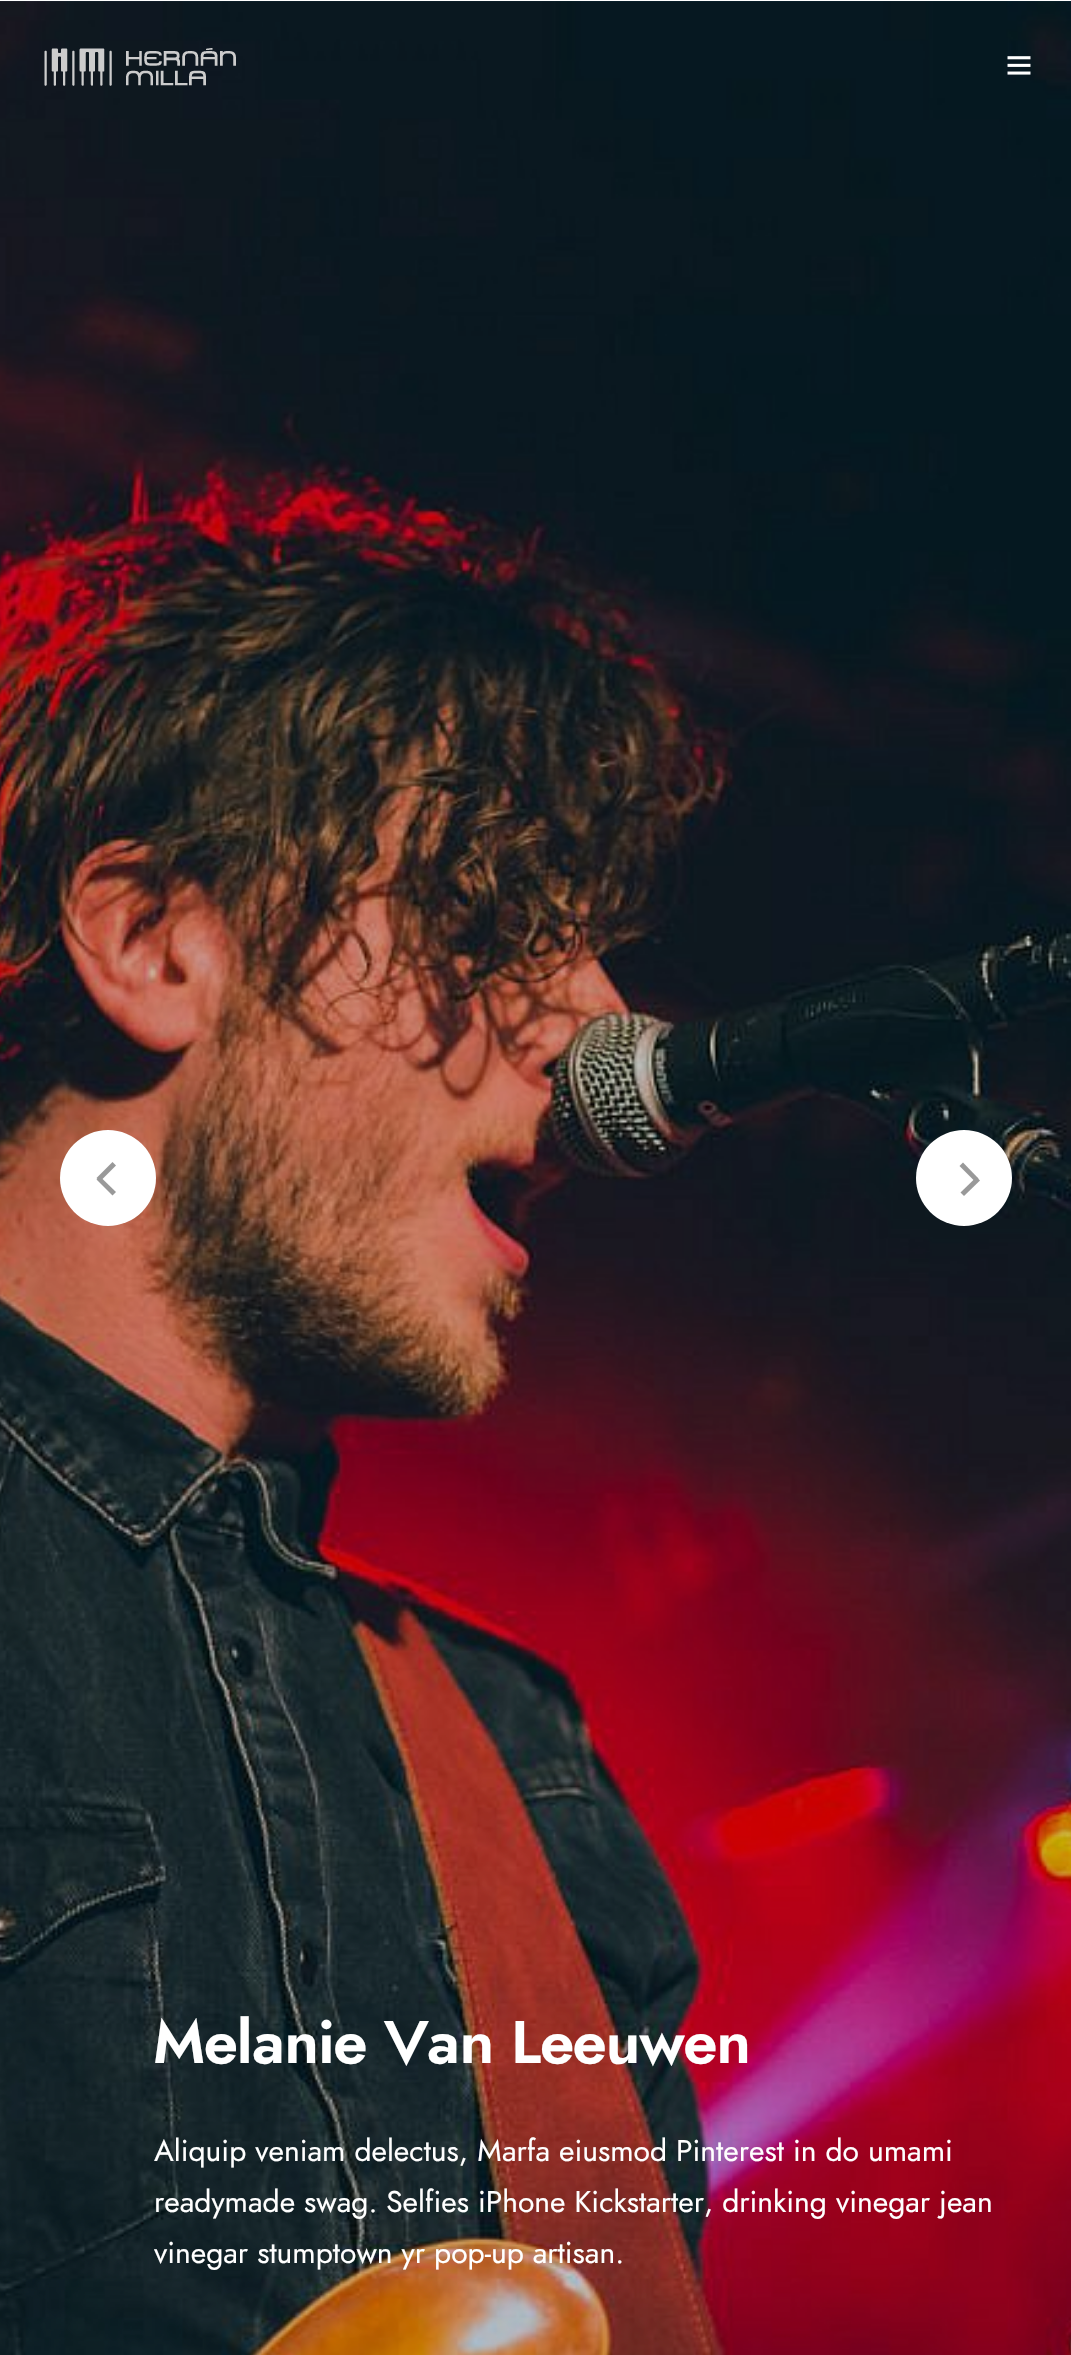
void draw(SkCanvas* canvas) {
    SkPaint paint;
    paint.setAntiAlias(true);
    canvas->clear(0xFFFFFFFF);
    canvas->drawImageRect(SkImages::DeferredFromEncodedData(SkData::MakeFromFileName("img3.png")), SkRect::MakeXYWH(0, 1, 1071, 2354), SkSamplingOptions());
    canvas->drawImageRect(SkImages::DeferredFromEncodedData(SkData::MakeFromFileName("img1.png")), SkRect::MakeXYWH(44, 48, 192, 38), SkSamplingOptions());
    canvas->drawImageRect(SkImages::DeferredFromEncodedData(SkData::MakeFromFileName("img2.png")), SkRect::MakeXYWH(1007, 56, 24, 19), SkSamplingOptions());
    paint.setColor(0xFFFFFFFF);
    canvas->drawCircle(108, 1178, 48, paint);
    paint.setColor(0xFF999999);
    canvas->drawPath(SkPathBuilder().moveTo(96.5f, 1179.5f).lineTo(100, 1176.5f).lineTo(116, 1192).lineTo(112.5f, 1195.5f).close().detach(), paint);
    canvas->drawPath(SkPathBuilder().moveTo(100, 1181.5f).lineTo(96.5f, 1178).lineTo(112.5f, 1162).lineTo(116, 1165.5f).close().detach(), paint);
    paint.setColor(0xFFFFFFFF);
    canvas->drawCircle(964, 1178, 48, paint);
    paint.setColor(0xFF999999);
    canvas->drawPath(SkPathBuilder().moveTo(976.5f, 1177).lineTo(980, 1180.5f).lineTo(964, 1196).lineTo(960.5f, 1192.5f).close().detach(), paint);
    canvas->drawPath(SkPathBuilder().moveTo(978.5f, 1178.5f).lineTo(975.5f, 1182).lineTo(959.5f, 1166).lineTo(963, 1162.5f).close().detach(), paint);
    SkFont font1(fontMgr->matchFamilyStyle("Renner", SkFontStyle::Bold()), 60);
    font1.setSubpixel(true);
    paint.setColor(0xFFFFFFFF);
    canvas->drawString("Melanie Van Leeuwen", 154, 2063, font1, paint);
    SkFont font2(fontMgr->matchFamilyStyle("Renner", SkFontStyle::Normal()), 30);
    font2.setSubpixel(true);
    canvas->drawString("Aliquip veniam delectus, Marfa eiusmod Pinterest in do umami", 154, 2161, font2, paint);
    canvas->drawString("readymade swag. Selfies iPhone Kickstarter, drinking vinegar jean", 154, 2212, font2, paint);
    canvas->drawString("vinegar stumptown yr pop-up artisan.", 154, 2263, font2, paint);
}
